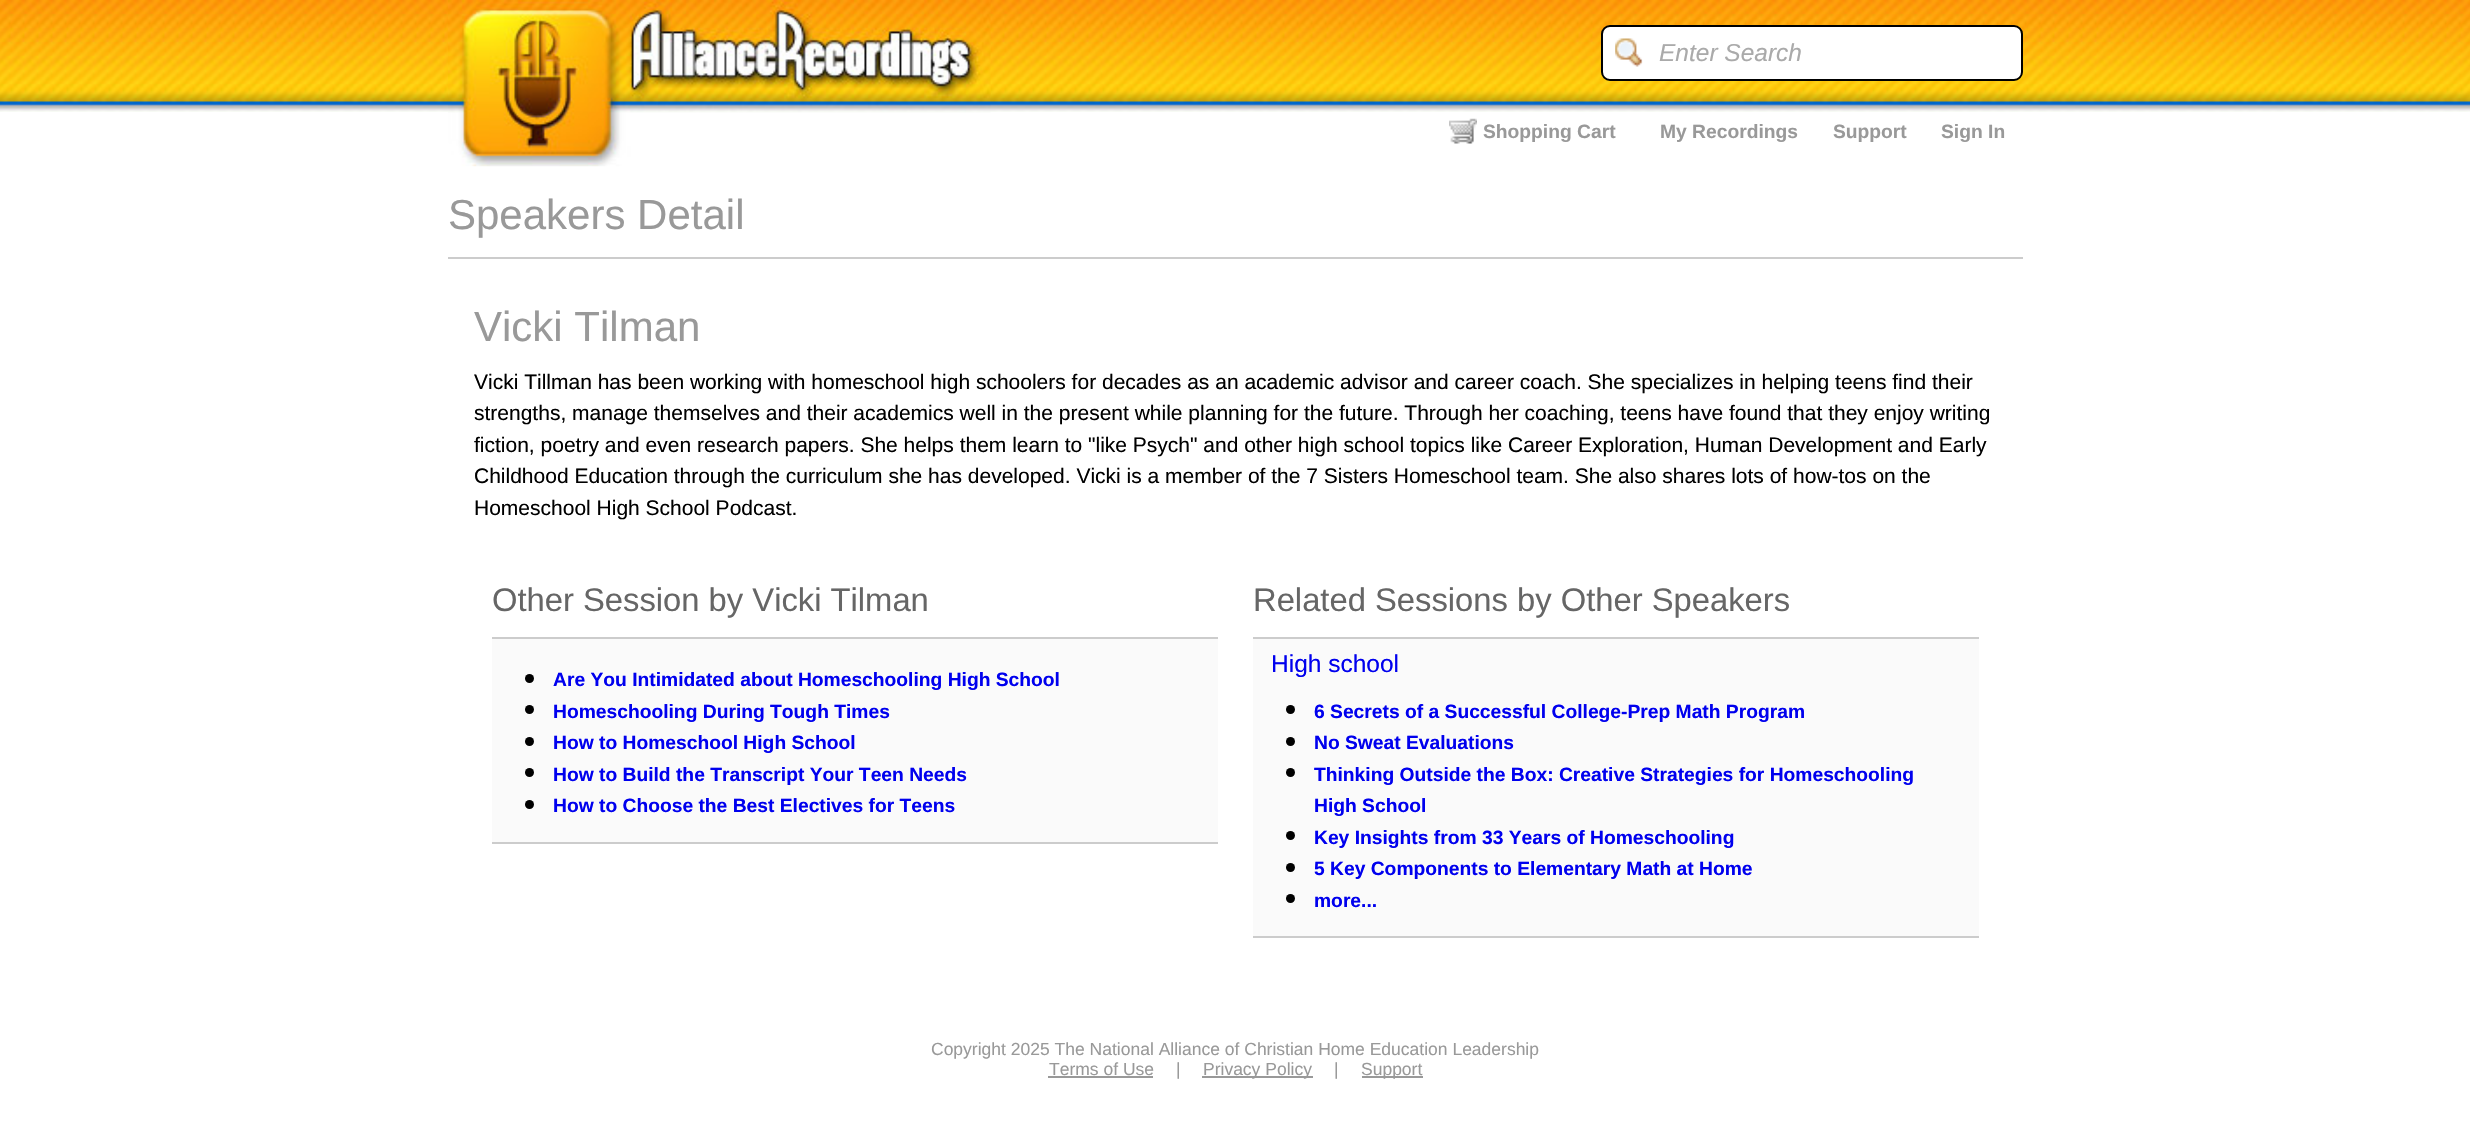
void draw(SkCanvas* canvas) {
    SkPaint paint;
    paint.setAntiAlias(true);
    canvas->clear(0xFFFFFFFF);
    canvas->drawImageRect(SkImages::DeferredFromEncodedData(SkData::MakeFromFileName("img1.png")), SkRect::MakeXYWH(0, 0, 2470, 112), SkSamplingOptions());
    canvas->drawImageRect(SkImages::DeferredFromEncodedData(SkData::MakeFromFileName("img2.png")), SkRect::MakeXYWH(448, 0, 543, 167), SkSamplingOptions());
    paint.setColor(0xFFFFFFFF);
    canvas->drawRoundRect(SkRect::MakeXYWH(1602, 26, 420, 54), 8, 8, paint);
    paint.setStyle(SkPaint::kStroke_Style);
    paint.setStrokeWidth(2);
    paint.setColor(0xFF000000);
    canvas->drawRoundRect(SkRect::MakeXYWH(1602, 26, 420, 54), 8, 8, paint);
    canvas->drawImageRect(SkImages::DeferredFromEncodedData(SkData::MakeFromFileName("img3.png")), SkRect::MakeXYWH(1615, 38, 28, 29), SkSamplingOptions());
    SkFont font1(fontMgr->matchFamilyStyle("Liberation Sans", SkFontStyle::Italic()), 24.5f);
    font1.setSubpixel(true);
    paint.setStyle(SkPaint::kFill_Style);
    paint.setColor(0xFFAAAAAA);
    canvas->drawString("Enter Search", 1659, 61, font1, paint);
    canvas->drawImageRect(SkImages::DeferredFromEncodedData(SkData::MakeFromFileName("img4.png")), SkRect::MakeXYWH(1449, 118, 28, 26), SkSamplingOptions());
    SkFont font2(fontMgr->matchFamilyStyle("Liberation Sans", SkFontStyle::Bold()), 19.25f);
    font2.setSubpixel(true);
    paint.setColor(0xFF999999);
    canvas->drawString("Shopping Cart", 1483, 138, font2, paint);
    canvas->drawString("My Recordings", 1660, 138, font2, paint);
    canvas->drawString("Support", 1833, 138, font2, paint);
    canvas->drawString("Sign In", 1941, 138, font2, paint);
    SkFont font3(fontMgr->matchFamilyStyle("Liberation Sans", SkFontStyle::Normal()), 42);
    font3.setSubpixel(true);
    canvas->drawString("Speakers Detail", 448, 229, font3, paint);
    paint.setColor(0xFFCCCCCC);
    canvas->drawRect(SkRect::MakeXYWH(448, 257, 1575, 2), paint);
    paint.setColor(0xFF999999);
    canvas->drawString("Vicki Tilman", 474, 341, font3, paint);
    SkFont font4(fontMgr->matchFamilyStyle("Liberation Sans", SkFontStyle::Normal()), 21);
    font4.setSubpixel(true);
    paint.setColor(0xFF000000);
    canvas->drawString("Vicki Tillman has been working with homeschool high schoolers for decades as an academic advisor and career coach. She specializes in helping teens find their", 474, 389, font4, paint);
    canvas->drawString("strengths, manage themselves and their academics well in the present while planning for the future. Through her coaching, teens have found that they enjoy writing", 474, 420, font4, paint);
    canvas->drawString("fiction, poetry and even research papers. She helps them learn to \"like Psych\" and other high school topics like Career Exploration, Human Development and Early", 474, 452, font4, paint);
    canvas->drawString("Childhood Education through the curriculum she has developed. Vicki is a member of the 7 Sisters Homeschool team. She also shares lots of how-tos on the", 474, 483, font4, paint);
    canvas->drawString("Homeschool High School Podcast.", 474, 515, font4, paint);
    SkFont font5(fontMgr->matchFamilyStyle("Liberation Sans", SkFontStyle::Normal()), 32.75f);
    font5.setSubpixel(true);
    paint.setColor(0xFF666666);
    canvas->drawString("Other Session by Vicki Tilman", 492, 611, font5, paint);
    paint.setColor(0xFFFAFAFA);
    canvas->drawRect(SkRect::MakeXYWH(492, 639, 726, 203), paint);
    paint.setColor(0xFFCCCCCC);
    canvas->drawRect(SkRect::MakeXYWH(492, 637, 726, 2), paint);
    canvas->drawRect(SkRect::MakeXYWH(492, 842, 726, 2), paint);
    paint.setColor(0xFF000000);
    canvas->drawCircle(529.5f, 678.5f, 4.5f, paint);
    paint.setColor(0xFF0000EE);
    canvas->drawString("Are You Intimidated about Homeschooling High School", 553, 686, font2, paint);
    paint.setColor(0xFF000000);
    canvas->drawCircle(529.5f, 709.5f, 4.5f, paint);
    paint.setColor(0xFF0000EE);
    canvas->drawString("Homeschooling During Tough Times", 553, 718, font2, paint);
    paint.setColor(0xFF000000);
    canvas->drawCircle(529.5f, 741.5f, 4.5f, paint);
    paint.setColor(0xFF0000EE);
    canvas->drawString("How to Homeschool High School", 553, 749, font2, paint);
    paint.setColor(0xFF000000);
    canvas->drawCircle(529.5f, 772.5f, 4.5f, paint);
    paint.setColor(0xFF0000EE);
    canvas->drawString("How to Build the Transcript Your Teen Needs", 553, 781, font2, paint);
    paint.setColor(0xFF000000);
    canvas->drawCircle(529.5f, 804.5f, 4.5f, paint);
    paint.setColor(0xFF0000EE);
    canvas->drawString("How to Choose the Best Electives for Teens", 553, 812, font2, paint);
    paint.setColor(0xFF666666);
    canvas->drawString("Related Sessions by Other Speakers", 1253, 611, font5, paint);
    paint.setColor(0xFFFAFAFA);
    canvas->drawRect(SkRect::MakeXYWH(1253, 639, 726, 297), paint);
    paint.setColor(0xFFCCCCCC);
    canvas->drawRect(SkRect::MakeXYWH(1253, 637, 726, 2), paint);
    canvas->drawRect(SkRect::MakeXYWH(1253, 936, 726, 2), paint);
    SkFont font6(fontMgr->matchFamilyStyle("Liberation Sans", SkFontStyle::Normal()), 24.5f);
    font6.setSubpixel(true);
    paint.setColor(0xFF0000EE);
    canvas->drawString("High school", 1271, 672, font6, paint);
    paint.setColor(0xFF000000);
    canvas->drawCircle(1290.5f, 709.5f, 4.5f, paint);
    paint.setColor(0xFF0000EE);
    canvas->drawString("6 Secrets of a Successful College-Prep Math Program", 1314, 718, font2, paint);
    paint.setColor(0xFF000000);
    canvas->drawCircle(1290.5f, 741.5f, 4.5f, paint);
    paint.setColor(0xFF0000EE);
    canvas->drawString("No Sweat Evaluations", 1314, 749, font2, paint);
    paint.setColor(0xFF000000);
    canvas->drawCircle(1290.5f, 772.5f, 4.5f, paint);
    paint.setColor(0xFF0000EE);
    canvas->drawString("Thinking Outside the Box: Creative Strategies for Homeschooling", 1314, 781, font2, paint);
    canvas->drawString("High School", 1314, 812, font2, paint);
    paint.setColor(0xFF000000);
    canvas->drawCircle(1290.5f, 835.5f, 4.5f, paint);
    paint.setColor(0xFF0000EE);
    canvas->drawString("Key Insights from 33 Years of Homeschooling", 1314, 844, font2, paint);
    paint.setColor(0xFF000000);
    canvas->drawCircle(1290.5f, 867.5f, 4.5f, paint);
    paint.setColor(0xFF0000EE);
    canvas->drawString("5 Key Components to Elementary Math at Home", 1314, 875, font2, paint);
    paint.setColor(0xFF000000);
    canvas->drawCircle(1290.5f, 898.5f, 4.5f, paint);
    paint.setColor(0xFF0000EE);
    canvas->drawString("more...", 1314, 907, font2, paint);
    SkFont font7(fontMgr->matchFamilyStyle("Liberation Sans", SkFontStyle::Normal()), 17.5f);
    font7.setSubpixel(true);
    paint.setColor(0xFF999999);
    canvas->drawString("Copyright 2025 The National Alliance of Christian Home Education Leadership", 931, 1055, font7, paint);
    canvas->drawString("Terms of Use", 1049, 1075, font7, paint);
    canvas->drawRect(SkRect::MakeXYWH(1048, 1076, 105, 2), paint);
    canvas->drawString("|", 1176, 1075, font7, paint);
    canvas->drawRect(SkRect::MakeXYWH(1202, 1076, 111, 2), paint);
    canvas->drawString("Privacy Policy", 1203, 1075, font7, paint);
    canvas->drawString("|", 1334, 1075, font7, paint);
    canvas->drawRect(SkRect::MakeXYWH(1362, 1076, 61, 2), paint);
    canvas->drawString("Support", 1361, 1075, font7, paint);
}
